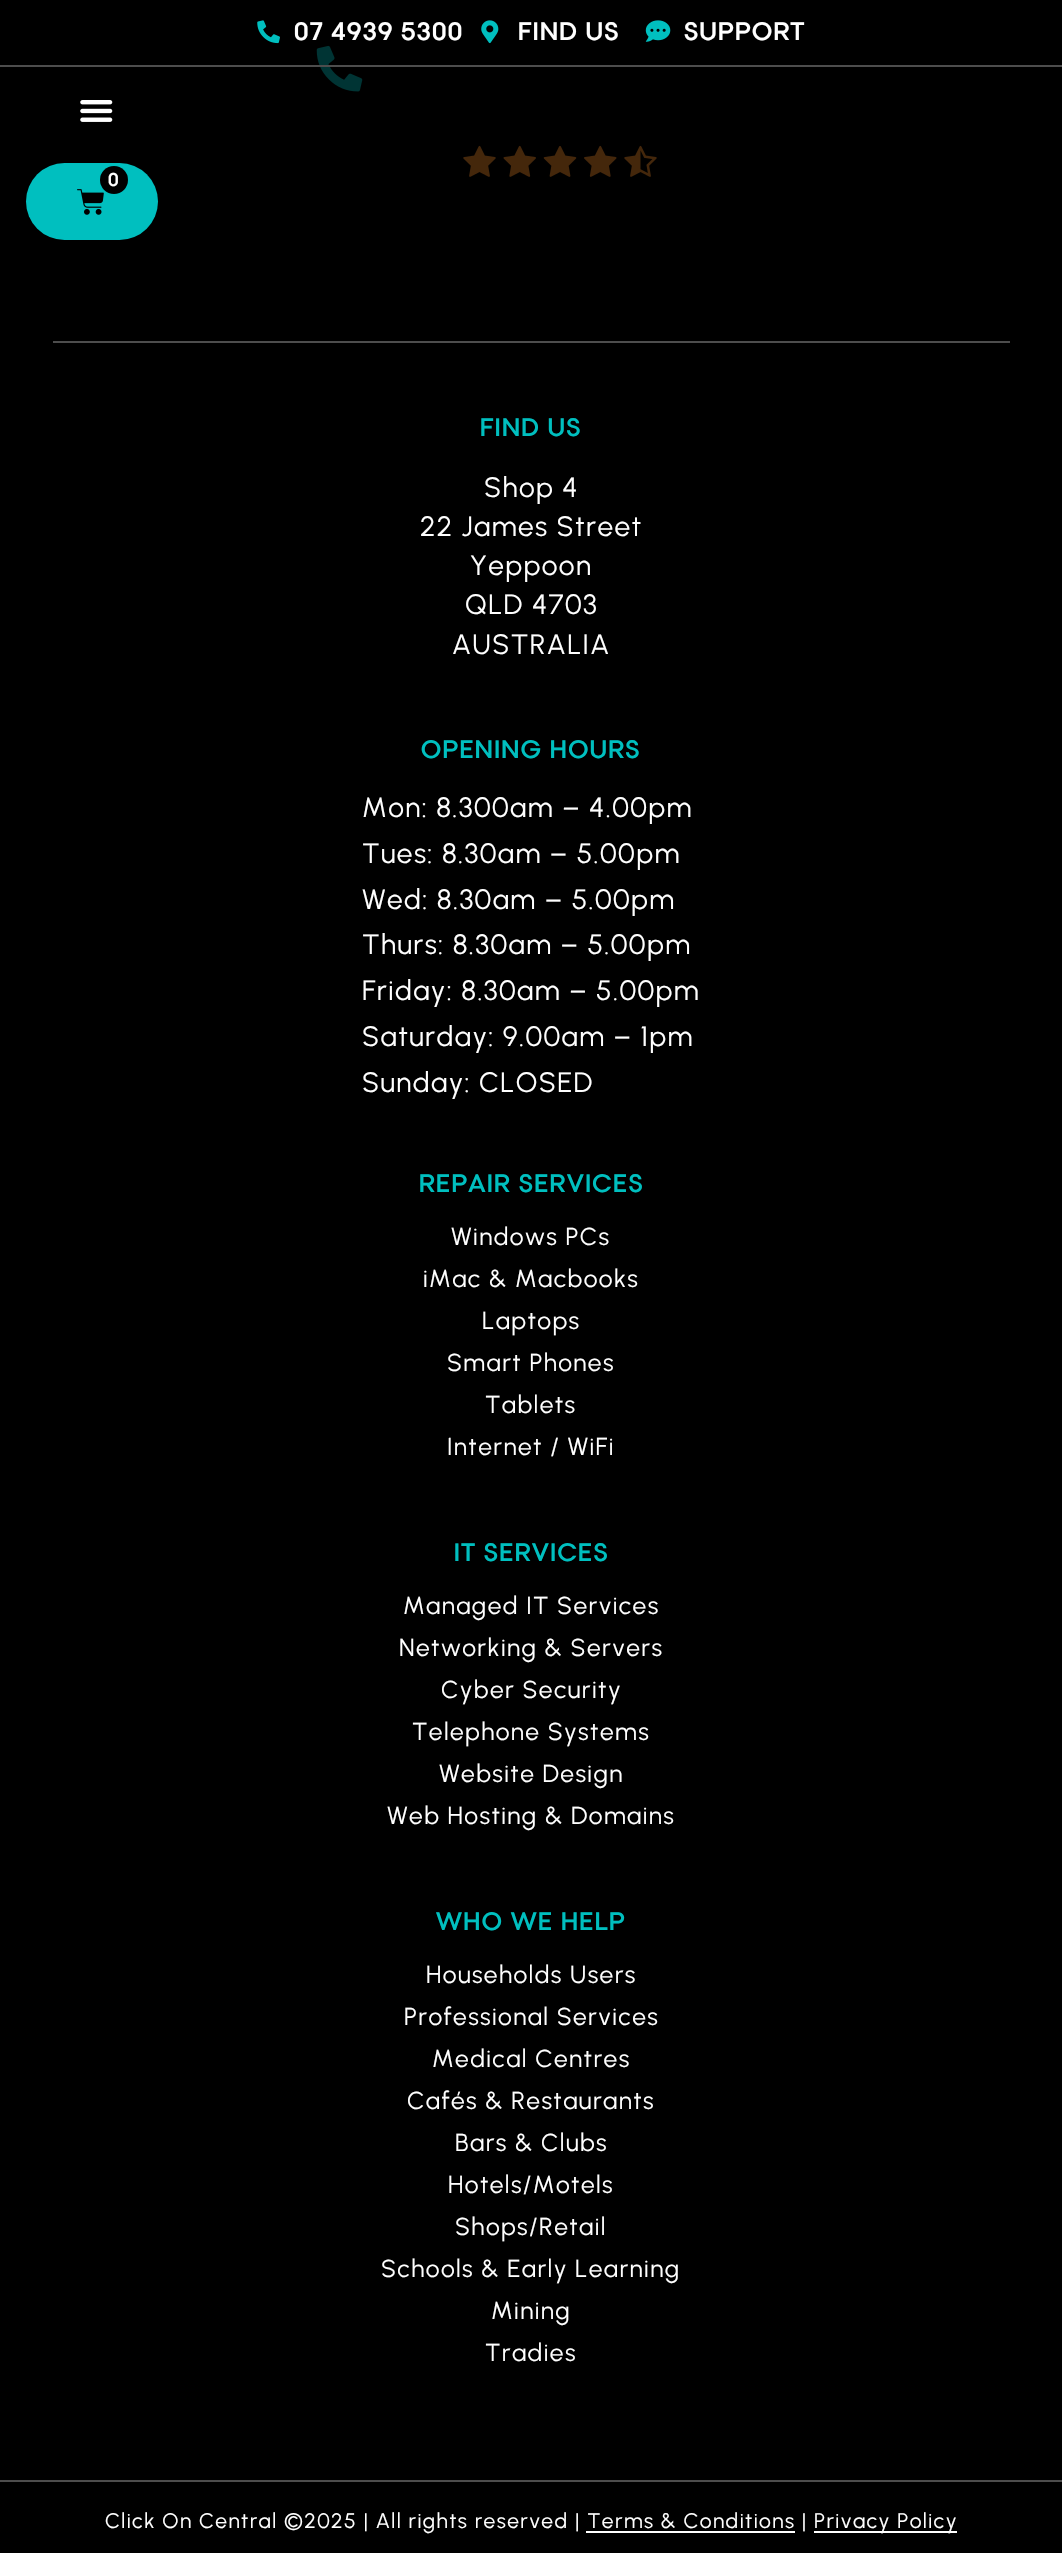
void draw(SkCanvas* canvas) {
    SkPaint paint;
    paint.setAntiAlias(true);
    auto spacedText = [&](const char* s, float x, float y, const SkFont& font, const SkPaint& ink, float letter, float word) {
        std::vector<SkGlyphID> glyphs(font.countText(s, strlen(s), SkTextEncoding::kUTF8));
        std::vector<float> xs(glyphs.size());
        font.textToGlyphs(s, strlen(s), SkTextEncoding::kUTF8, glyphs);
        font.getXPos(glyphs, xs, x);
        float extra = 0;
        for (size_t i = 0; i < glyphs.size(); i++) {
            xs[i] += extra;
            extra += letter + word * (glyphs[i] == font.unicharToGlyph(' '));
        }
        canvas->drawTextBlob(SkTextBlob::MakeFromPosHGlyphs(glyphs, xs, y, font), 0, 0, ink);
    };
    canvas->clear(0xFF000000);
    canvas->drawImageRect(SkImages::DeferredFromEncodedData(SkData::MakeFromFileName("img6.png")), SkRect::MakeXYWH(316, 45, 47, 47), SkSamplingOptions());
    canvas->drawImageRect(SkImages::DeferredFromEncodedData(SkData::MakeFromFileName("img7.png")), SkRect::MakeXYWH(463, 145, 33, 32), SkSamplingOptions());
    canvas->drawImageRect(SkImages::DeferredFromEncodedData(SkData::MakeFromFileName("img8.png")), SkRect::MakeXYWH(503, 145, 33, 32), SkSamplingOptions());
    canvas->drawImageRect(SkImages::DeferredFromEncodedData(SkData::MakeFromFileName("img9.png")), SkRect::MakeXYWH(543, 146, 34, 31), SkSamplingOptions());
    canvas->drawImageRect(SkImages::DeferredFromEncodedData(SkData::MakeFromFileName("img10.png")), SkRect::MakeXYWH(584, 145, 33, 32), SkSamplingOptions());
    canvas->drawImageRect(SkImages::DeferredFromEncodedData(SkData::MakeFromFileName("img11.png")), SkRect::MakeXYWH(624, 145, 33, 32), SkSamplingOptions());
    paint.setColor(0xBA000000);
    canvas->drawRect(SkRect::MakeXYWH(316, 45, 341, 132), paint);
    paint.setColor(0xFF4D4D4D);
    canvas->drawRect(SkRect::MakeXYWH(0, 65, 1062, 2), paint);
    canvas->drawImageRect(SkImages::DeferredFromEncodedData(SkData::MakeFromFileName("img1.png")), SkRect::MakeXYWH(257, 20, 23, 24), SkSamplingOptions());
    SkFont font1(fontMgr->matchFamilyStyle("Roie", SkFontStyle::Normal()), 24.5f);
    font1.setSubpixel(true);
    paint.setColor(0xFFFFFFFF);
    spacedText("07 4939 5300", 294, 40, font1, paint, 1.4f, 0);
    canvas->drawImageRect(SkImages::DeferredFromEncodedData(SkData::MakeFromFileName("img2.png")), SkRect::MakeXYWH(481, 20, 18, 24), SkSamplingOptions());
    spacedText("FIND US", 518, 40, font1, paint, 1.4f, 0);
    canvas->drawImageRect(SkImages::DeferredFromEncodedData(SkData::MakeFromFileName("img3.png")), SkRect::MakeXYWH(645, 20, 26, 22), SkSamplingOptions());
    spacedText("SUPPORT", 684, 40, font1, paint, 1.4f, 0);
    canvas->drawImageRect(SkImages::DeferredFromEncodedData(SkData::MakeFromFileName("img4.png")), SkRect::MakeXYWH(80, 100, 33, 22), SkSamplingOptions());
    paint.setColor(0xFF00BFBF);
    canvas->drawRoundRect(SkRect::MakeXYWH(26, 163, 132, 77), 38.5f, 38.5f, paint);
    canvas->drawImageRect(SkImages::DeferredFromEncodedData(SkData::MakeFromFileName("img5.png")), SkRect::MakeXYWH(77, 189, 27, 26), SkSamplingOptions());
    paint.setColor(0xFF000000);
    canvas->drawCircle(114, 180, 14, paint);
    SkFont font2(fontMgr->matchFamilyStyle("Roie", SkFontStyle::Normal()), 18);
    font2.setSubpixel(true);
    paint.setColor(0xFFFFFFFF);
    spacedText("0", 108, 186, font2, paint, 1.4f, 0);
    paint.setColor(0xFF4D4D4D);
    canvas->drawRect(SkRect::MakeXYWH(53, 341, 957, 2), paint);
    paint.setColor(0xFF00BFBF);
    spacedText("FIND US", 480, 436, font1, paint, 1.4f, 0);
    SkFont font3(fontMgr->matchFamilyStyle("Urbanist", SkFontStyle::Normal()), 28);
    font3.setSubpixel(true);
    paint.setColor(0xFFFFFFFF);
    spacedText("Shop 4", 484, 497, font3, paint, 1.4f, 0);
    spacedText("22 James Street", 420, 536, font3, paint, 1.4f, 0);
    spacedText("Yeppoon", 470, 575, font3, paint, 1.4f, 0);
    spacedText("QLD 4703", 465, 614, font3, paint, 1.4f, 0);
    spacedText("AUSTRALIA", 452, 654, font3, paint, 1.4f, 0);
    paint.setColor(0xFF00BFBF);
    spacedText("OPENING HOURS", 421, 758, font1, paint, 1.4f, 0);
    paint.setColor(0xFFFFFFFF);
    spacedText("Mon: 8.300am – 4.00pm", 362, 817, font3, paint, 1.4f, 0);
    spacedText("Tues: 8.30am – 5.00pm", 362, 863, font3, paint, 1.4f, 0);
    spacedText("Wed: 8.30am – 5.00pm", 362, 909, font3, paint, 1.4f, 0);
    spacedText("Thurs: 8.30am – 5.00pm", 362, 954, font3, paint, 1.4f, 0);
    spacedText("Friday: 8.30am – 5.00pm", 362, 1000, font3, paint, 1.4f, 0);
    spacedText("Saturday: 9.00am – 1pm", 362, 1046, font3, paint, 1.4f, 0);
    spacedText("Sunday: CLOSED", 362, 1092, font3, paint, 1.4f, 0);
    paint.setColor(0xFF00BFBF);
    spacedText("REPAIR SERVICES", 419, 1192, font1, paint, 1.4f, 0);
    SkFont font4(fontMgr->matchFamilyStyle("Urbanist", SkFontStyle::Normal()), 24.5f);
    font4.setSubpixel(true);
    paint.setColor(0xFFFFFFFF);
    spacedText("Windows PCs", 451, 1245, font4, paint, 1.4f, 0);
    spacedText("iMac & Macbooks", 423, 1287, font4, paint, 1.4f, 0);
    spacedText("Laptops", 482, 1329, font4, paint, 1.4f, 0);
    spacedText("Smart Phones", 447, 1371, font4, paint, 1.4f, 0);
    spacedText("Tablets", 485, 1413, font4, paint, 1.4f, 0);
    spacedText("Internet / WiFi", 447, 1455, font4, paint, 1.4f, 0);
    paint.setColor(0xFF00BFBF);
    spacedText("IT SERVICES", 454, 1561, font1, paint, 1.4f, 0);
    paint.setColor(0xFFFFFFFF);
    spacedText("Managed IT Services", 403, 1614, font4, paint, 1.4f, 0);
    spacedText("Networking & Servers", 399, 1656, font4, paint, 1.4f, 0);
    spacedText("Cyber Security", 441, 1698, font4, paint, 1.4f, 0);
    spacedText("Telephone Systems", 412, 1740, font4, paint, 1.4f, 0);
    spacedText("Website Design", 439, 1782, font4, paint, 1.4f, 0);
    spacedText("Web Hosting & Domains", 387, 1824, font4, paint, 1.4f, 0);
    paint.setColor(0xFF00BFBF);
    spacedText("WHO WE HELP", 436, 1930, font1, paint, 1.4f, 0);
    paint.setColor(0xFFFFFFFF);
    spacedText("Households Users", 426, 1983, font4, paint, 1.4f, 0);
    spacedText("Professional Services", 404, 2025, font4, paint, 1.4f, 0);
    spacedText("Medical Centres", 432, 2067, font4, paint, 1.4f, 0);
    spacedText("Cafés & Restaurants", 407, 2109, font4, paint, 1.4f, 0);
    spacedText("Bars & Clubs", 455, 2151, font4, paint, 1.4f, 0);
    spacedText("Hotels/Motels", 448, 2193, font4, paint, 1.4f, 0);
    spacedText("Shops/Retail", 455, 2235, font4, paint, 1.4f, 0);
    spacedText("Schools & Early Learning", 381, 2277, font4, paint, 1.4f, 0);
    spacedText("Mining", 491, 2319, font4, paint, 1.4f, 0);
    spacedText("Tradies", 485, 2361, font4, paint, 1.4f, 0);
    paint.setColor(0xFF4D4D4D);
    canvas->drawRect(SkRect::MakeXYWH(0, 2480, 1062, 2), paint);
    SkFont font5(fontMgr->matchFamilyStyle("Urbanist", SkFontStyle::Normal()), 21);
    font5.setSubpixel(true);
    paint.setColor(0xFFFFFFFF);
    spacedText("Click On Central ©2025 | All rights reserved | Terms & Conditions |", 105, 2528, font5, paint, 1.4f, 0);
    canvas->drawRect(SkRect::MakeXYWH(814, 2531, 143, 2), paint);
    spacedText("Privacy Policy", 814, 2528, font5, paint, 1.4f, 0);
    canvas->drawRect(SkRect::MakeXYWH(586, 2531, 209, 2), paint);
}
